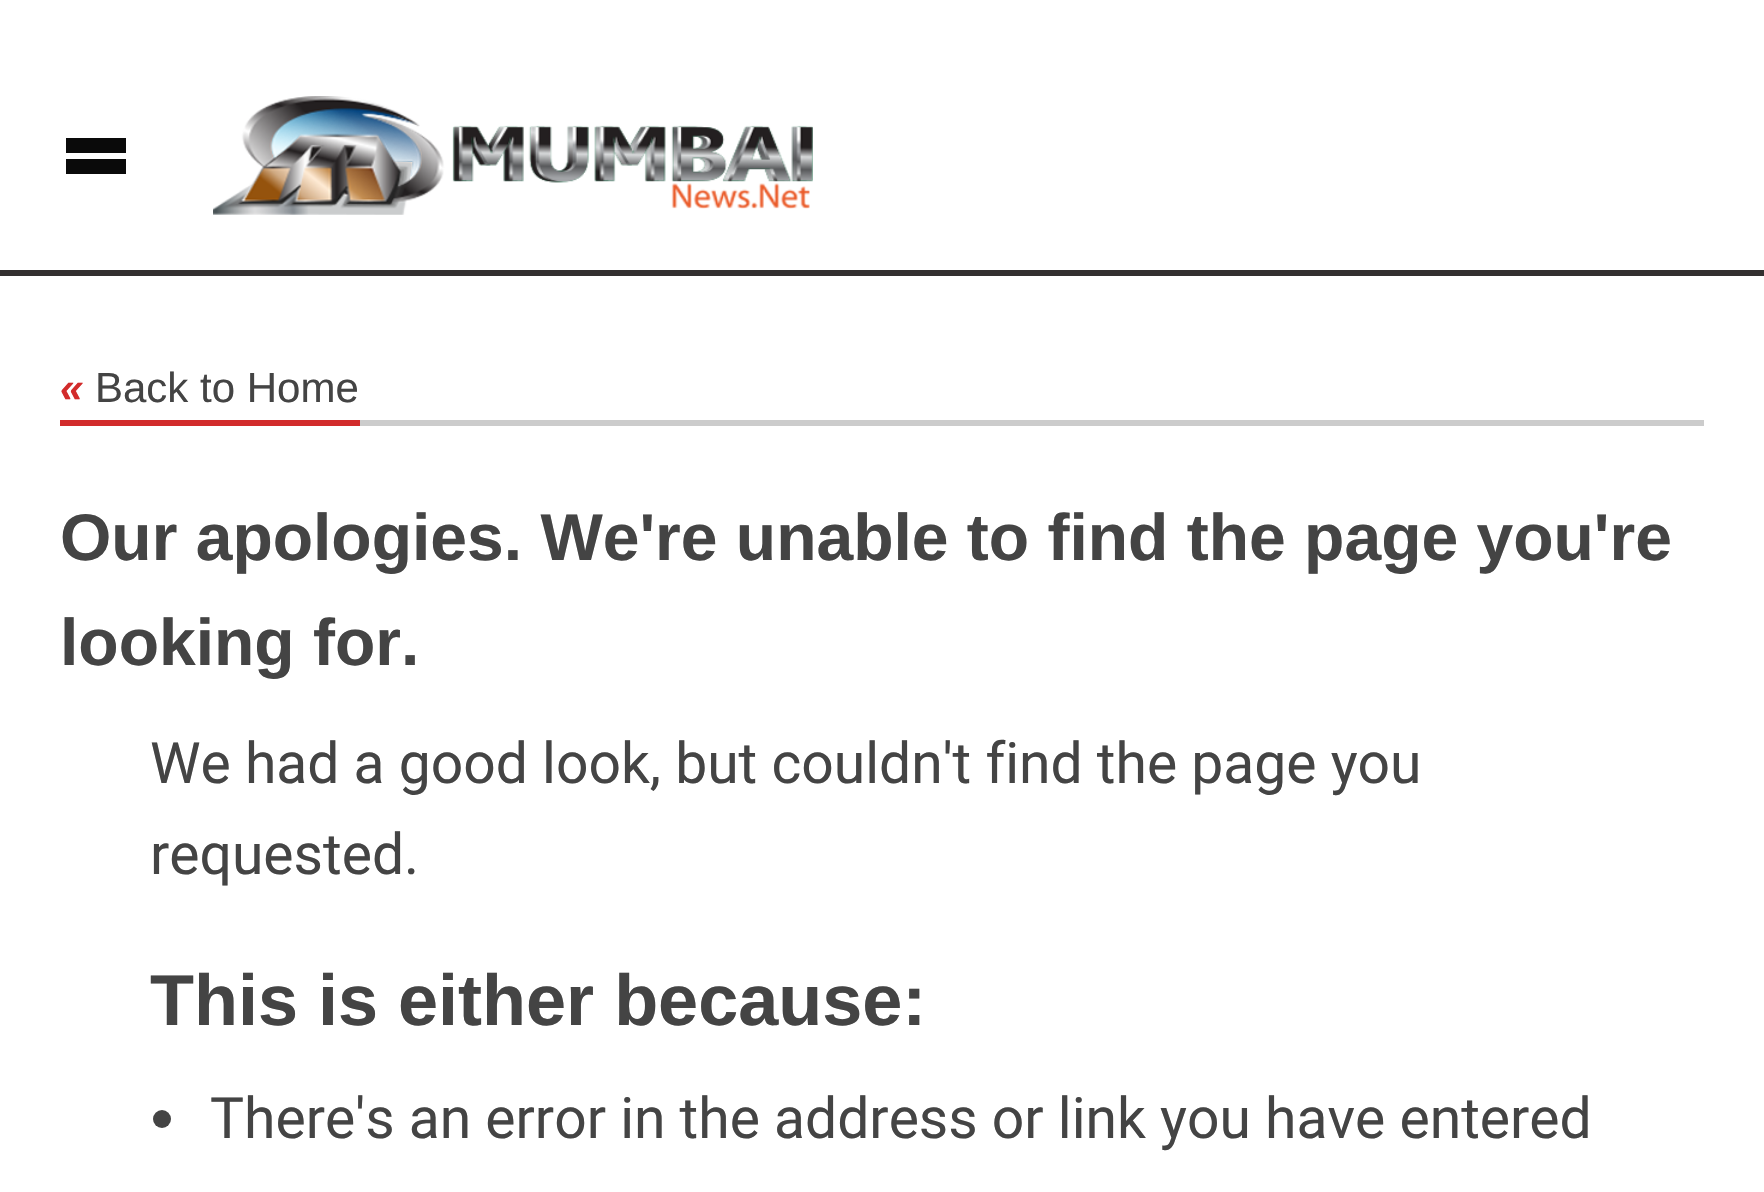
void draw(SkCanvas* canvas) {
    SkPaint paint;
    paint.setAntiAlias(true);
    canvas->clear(0xFFFFFFFF);
    paint.setColor(0xFF333030);
    canvas->drawRect(SkRect::MakeXYWH(0, 270, 1764, 6), paint);
    paint.setColor(0xFF0A0A0A);
    canvas->drawRect(SkRect::MakeXYWH(66, 138, 60, 36), paint);
    paint.setColor(0xFFFEFEFE);
    canvas->drawRect(SkRect::MakeXYWH(66, 153, 60, 6), paint);
    canvas->drawImageRect(SkImages::DeferredFromEncodedData(SkData::MakeFromFileName("img1.png")), SkRect::MakeXYWH(213, 96, 600, 119), SkSamplingOptions());
    paint.setColor(0xFFCCCCCC);
    canvas->drawRect(SkRect::MakeXYWH(360, 420, 1344, 6), paint);
    SkFont font1(fontMgr->matchFamilyStyle("Liberation Sans", SkFontStyle::BoldItalic()), 42);
    font1.setSubpixel(true);
    paint.setColor(0xFFD22B2B);
    canvas->drawString("«", 60, 402, font1, paint);
    SkFont font2(fontMgr->matchFamilyStyle("Liberation Sans", SkFontStyle::Normal()), 42);
    font2.setSubpixel(true);
    paint.setColor(0xFF444444);
    canvas->drawString("Back to Home", 95, 402, font2, paint);
    paint.setColor(0xFFD22B2B);
    canvas->drawRect(SkRect::MakeXYWH(60, 420, 300, 6), paint);
    SkFont font3(fontMgr->matchFamilyStyle("Liberation Sans", SkFontStyle::Bold()), 66);
    font3.setSubpixel(true);
    paint.setColor(0xFF444444);
    canvas->drawString("Our apologies. We're unable to find the page you're", 60, 560, font3, paint);
    canvas->drawString("looking for.", 60, 665, font3, paint);
    SkFont font4(fontMgr->matchFamilyStyle("Roboto", SkFontStyle::Normal()), 57);
    font4.setSubpixel(true);
    canvas->drawString("We had a good look, but couldn't find the page you", 150, 783, font4, paint);
    canvas->drawString("requested.", 150, 874, font4, paint);
    SkFont font5(fontMgr->matchFamilyStyle("Liberation Sans", SkFontStyle::Bold()), 72);
    font5.setSubpixel(true);
    canvas->drawString("This is either because:", 150, 1025, font5, paint);
    canvas->drawCircle(162, 1119, 9, paint);
    canvas->drawString("There's an error in the address or link you have entered", 210, 1138, font4, paint);
}
